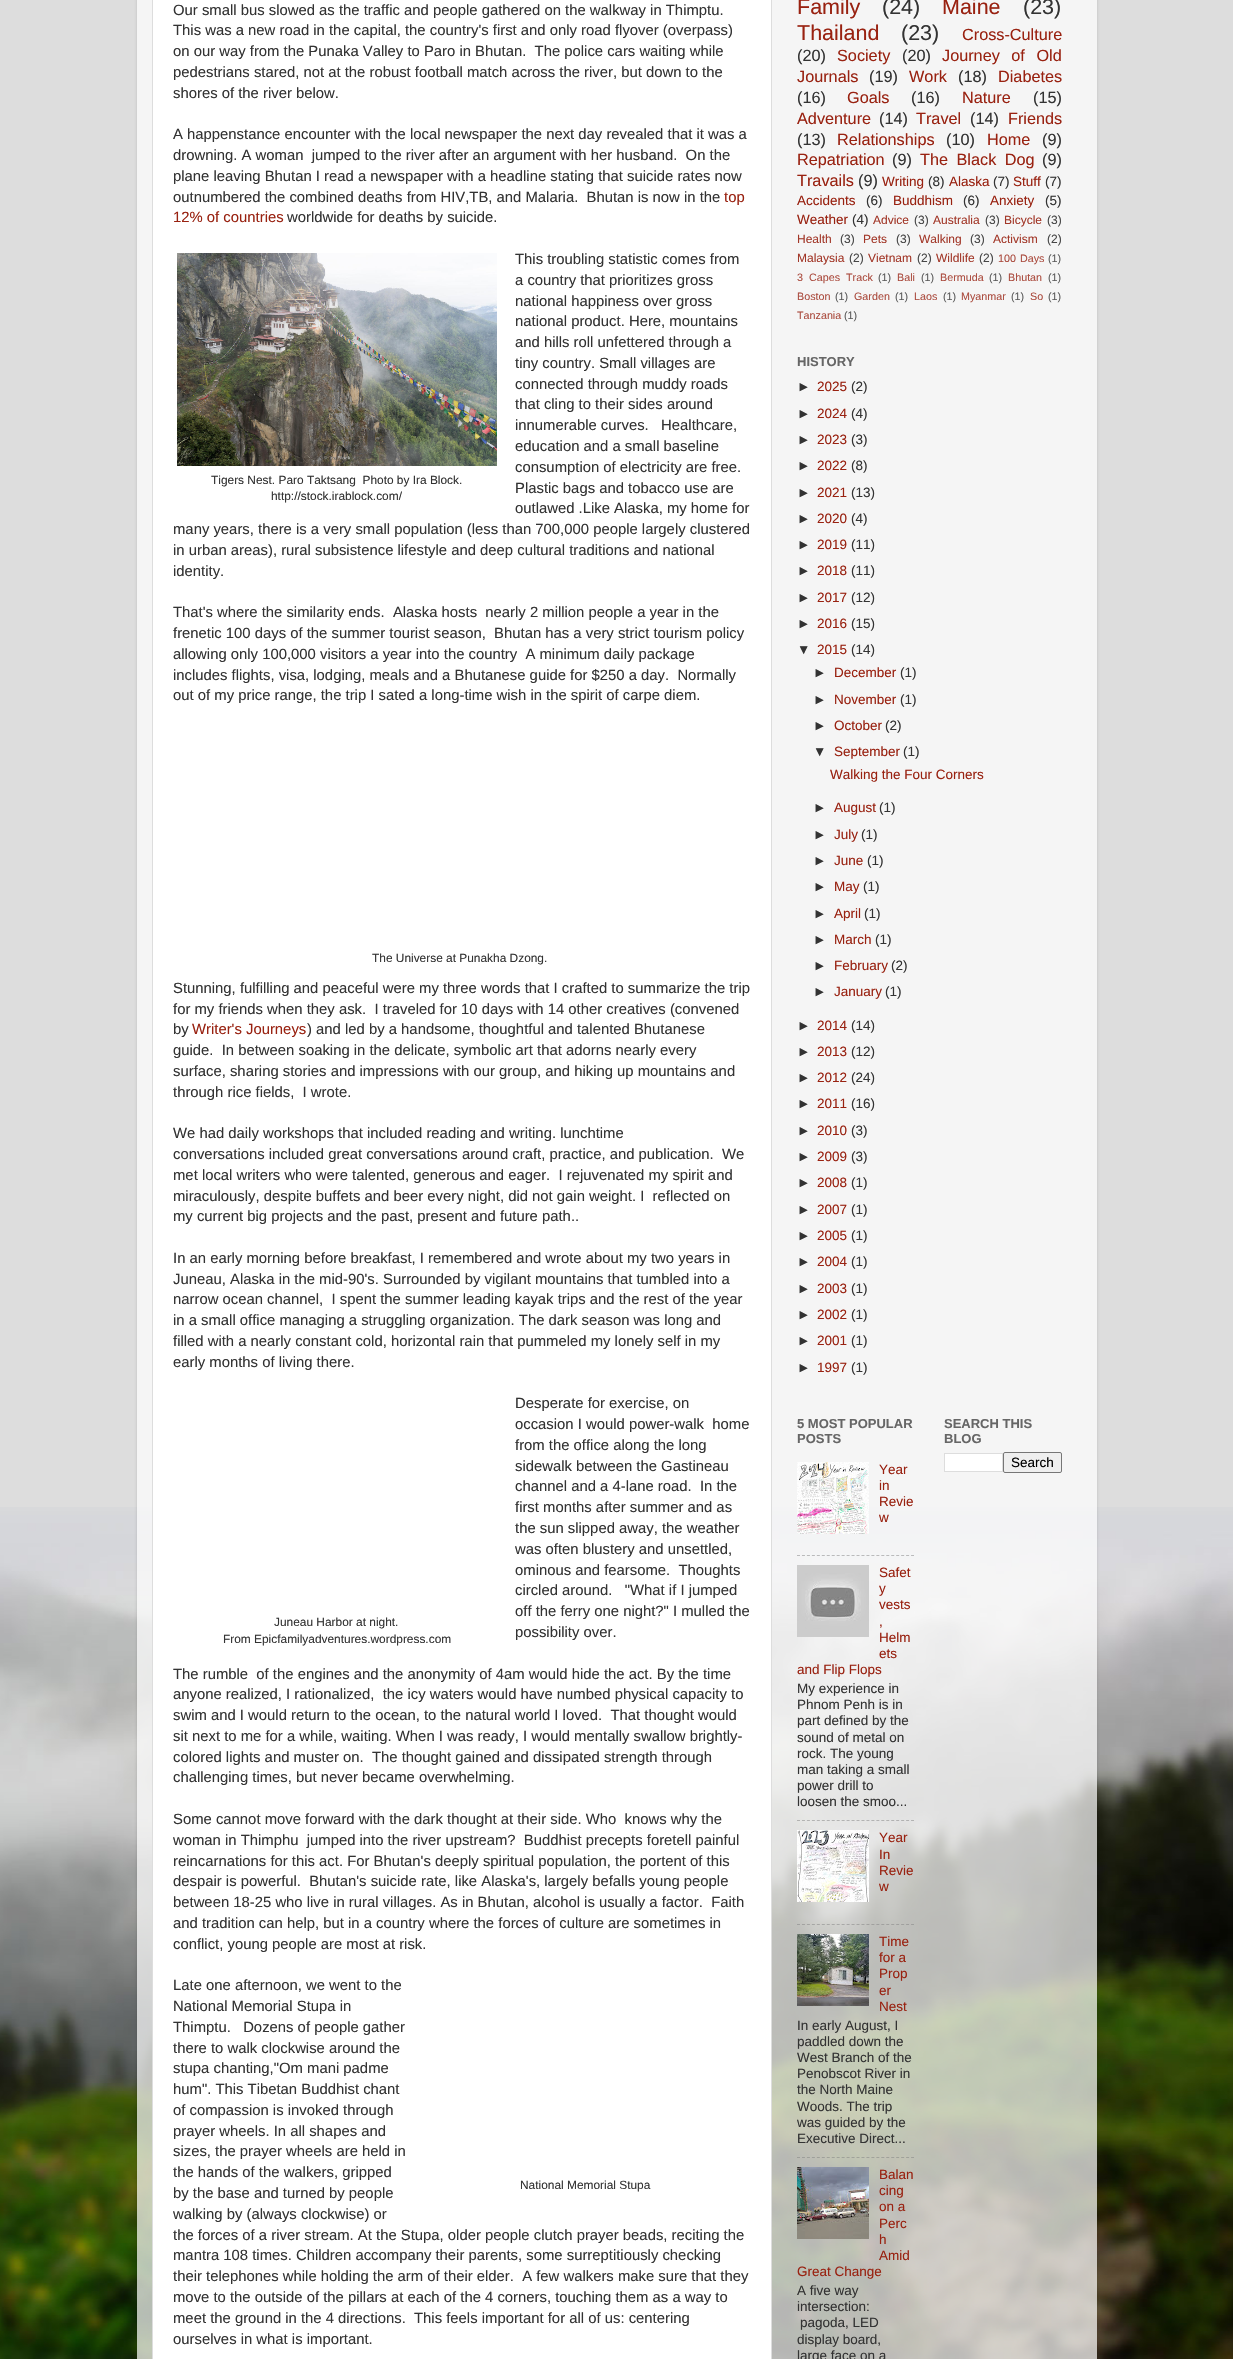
void draw(SkCanvas* canvas) {
    SkPaint paint;
    paint.setAntiAlias(true);
    auto spacedText = [&](const char* s, float x, float y, const SkFont& font, const SkPaint& ink, float letter, float word) {
        std::vector<SkGlyphID> glyphs(font.countText(s, strlen(s), SkTextEncoding::kUTF8));
        std::vector<float> xs(glyphs.size());
        font.textToGlyphs(s, strlen(s), SkTextEncoding::kUTF8, glyphs);
        font.getXPos(glyphs, xs, x);
        float extra = 0;
        for (size_t i = 0; i < glyphs.size(); i++) {
            xs[i] += extra;
            extra += letter + word * (glyphs[i] == font.unicharToGlyph(' '));
        }
        canvas->drawTextBlob(SkTextBlob::MakeFromPosHGlyphs(glyphs, xs, y, font), 0, 0, ink);
    };
    canvas->clear(0xFFDDDDDD);
    canvas->drawImageRect(SkImages::DeferredFromEncodedData(SkData::MakeFromFileName("img1.png")), SkRect::MakeXYWH(0, 1507, 1233, 852), SkSamplingOptions());
    canvas->save();
    canvas->clipPath(SkPathBuilder(SkPathFillType::kEvenOdd).moveTo(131, 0).lineTo(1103, 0).lineTo(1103, 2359).lineTo(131, 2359).close().moveTo(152, -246).lineTo(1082, -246).cubicTo(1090.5f, -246, 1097, -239.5f, 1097, -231).lineTo(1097, 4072).cubicTo(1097, 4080.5f, 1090.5f, 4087, 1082, 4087).lineTo(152, 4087).cubicTo(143.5f, 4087, 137, 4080.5f, 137, 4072).lineTo(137, -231).cubicTo(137, -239.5f, 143.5f, -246, 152, -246).close().detach(), true);
    paint.setColor(0x26000000);
    paint.setMaskFilter(SkMaskFilter::MakeBlur(kNormal_SkBlurStyle, 1.5f));
    canvas->drawRoundRect(SkRect::MakeXYWH(137, -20, 960, 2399), 15, 15, paint);
    paint.setMaskFilter(nullptr);
    canvas->restore();
    paint.setColor(0xB3FFFFFF);
    canvas->drawRect(SkRect::MakeXYWH(137, 0, 960, 2359), paint);
    paint.setColor(0xFFFFFFFF);
    canvas->drawRect(SkRect::MakeXYWH(152.5f, -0.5f, 619, 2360), paint);
    paint.setStyle(SkPaint::kStroke_Style);
    paint.setStrokeWidth(1);
    paint.setColor(0xFFDDDDDD);
    canvas->drawRect(SkRect::MakeXYWH(152.5f, -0.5f, 619, 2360), paint);
    SkFont font1(fontMgr->matchFamilyStyle("Liberation Sans", SkFontStyle::Normal()), 14.85f);
    font1.setSubpixel(true);
    paint.setStyle(SkPaint::kFill_Style);
    paint.setColor(0xFF333333);
    canvas->drawString("Our small bus slowed as the traffic and people gathered on the walkway in Thimptu.", 173, 15, font1, paint);
    canvas->drawString("This was a new road in the capital, the country's first and only road flyover (overpass)", 173, 35, font1, paint);
    canvas->drawString("on our way from the Punaka Valley to Paro in Bhutan.  The police cars waiting while", 173, 56, font1, paint);
    canvas->drawString("pedestrians stared, not at the robust football match across the river, but down to the", 173, 77, font1, paint);
    canvas->drawString("shores of the river below.", 173, 98, font1, paint);
    canvas->drawString("A happenstance encounter with the local newspaper the next day revealed that it was a", 173, 139, font1, paint);
    canvas->drawString("drowning. A woman  jumped to the river after an argument with her husband.  On the", 173, 160, font1, paint);
    canvas->drawString("plane leaving Bhutan I read a newspaper with a headline stating that suicide rates now", 173, 181, font1, paint);
    canvas->drawString("outnumbered the combined deaths from HIV,TB, and Malaria.  Bhutan is now in the", 173, 202, font1, paint);
    paint.setColor(0xFF992211);
    canvas->drawString("top", 724, 202, font1, paint);
    canvas->drawString("12% of countries", 173, 222, font1, paint);
    paint.setColor(0xFF333333);
    canvas->drawString("worldwide for deaths by suicide.", 287, 222, font1, paint);
    canvas->drawString("This troubling statistic comes from", 515, 264, font1, paint);
    canvas->drawString("a country that prioritizes gross", 515, 285, font1, paint);
    canvas->drawString("national happiness over gross", 515, 306, font1, paint);
    canvas->drawString("national product. Here, mountains", 515, 326, font1, paint);
    canvas->drawString("and hills roll unfettered through a", 515, 347, font1, paint);
    canvas->drawString("tiny country. Small villages are", 515, 368, font1, paint);
    canvas->drawString("connected through muddy roads", 515, 389, font1, paint);
    canvas->drawString("that cling to their sides around", 515, 409, font1, paint);
    canvas->drawString("innumerable curves.   Healthcare,", 515, 430, font1, paint);
    canvas->drawString("education and a small baseline", 515, 451, font1, paint);
    canvas->drawString("consumption of electricity are free.", 515, 472, font1, paint);
    canvas->drawImageRect(SkImages::DeferredFromEncodedData(SkData::MakeFromFileName("img2.png")), SkRect::MakeXYWH(177, 253, 320, 213), SkSamplingOptions());
    SkFont font2(fontMgr->matchFamilyStyle("Liberation Sans", SkFontStyle::Normal()), 11.9f);
    font2.setSubpixel(true);
    canvas->drawString("Tigers Nest. Paro Taktsang  Photo by Ira Block.", 211, 484, font2, paint);
    canvas->drawString("http://stock.irablock.com/", 271, 500, font2, paint);
    canvas->drawString("Plastic bags and tobacco use are", 515, 493, font1, paint);
    canvas->drawString("outlawed .Like Alaska, my home for", 515, 513, font1, paint);
    canvas->drawString("many years, there is a very small population (less than 700,000 people largely clustered", 173, 534, font1, paint);
    canvas->drawString("in urban areas), rural subsistence lifestyle and deep cultural traditions and national", 173, 555, font1, paint);
    canvas->drawString("identity.", 173, 576, font1, paint);
    canvas->drawString("That's where the similarity ends.  Alaska hosts  nearly 2 million people a year in the", 173, 617, font1, paint);
    canvas->drawString("frenetic 100 days of the summer tourist season,  Bhutan has a very strict tourism policy", 173, 638, font1, paint);
    canvas->drawString("allowing only 100,000 visitors a year into the country  A minimum daily package", 173, 659, font1, paint);
    canvas->drawString("includes flights, visa, lodging, meals and a Bhutanese guide for $250 a day.  Normally", 173, 680, font1, paint);
    canvas->drawString("out of my price range, the trip I sated a long-time wish in the spirit of carpe diem.", 173, 700, font1, paint);
    canvas->drawString("The Universe at Punakha Dzong.", 372, 962, font2, paint);
    canvas->drawString("Stunning, fulfilling and peaceful were my three words that I crafted to summarize the trip", 173, 993, font1, paint);
    canvas->drawString("for my friends when they ask.  I traveled for 10 days with 14 other creatives (convened", 173, 1014, font1, paint);
    canvas->drawString("by", 173, 1034, font1, paint);
    paint.setColor(0xFF992211);
    canvas->drawString("Writer's Journeys", 192, 1034, font1, paint);
    paint.setColor(0xFF333333);
    canvas->drawString(") and led by a handsome, thoughtful and talented Bhutanese", 307, 1034, font1, paint);
    canvas->drawString("guide.  In between soaking in the delicate, symbolic art that adorns nearly every", 173, 1055, font1, paint);
    canvas->drawString("surface, sharing stories and impressions with our group, and hiking up mountains and", 173, 1076, font1, paint);
    canvas->drawString("through rice fields,  I wrote.", 173, 1097, font1, paint);
    canvas->drawString("We had daily workshops that included reading and writing. lunchtime", 173, 1138, font1, paint);
    canvas->drawString("conversations included great conversations around craft, practice, and publication.  We", 173, 1159, font1, paint);
    canvas->drawString("met local writers who were talented, generous and eager.  I rejuvenated my spirit and", 173, 1180, font1, paint);
    canvas->drawString("miraculously, despite buffets and beer every night, did not gain weight. I  reflected on", 173, 1201, font1, paint);
    canvas->drawString("my current big projects and the past, present and future path..", 173, 1221, font1, paint);
    canvas->drawString("In an early morning before breakfast, I remembered and wrote about my two years in", 173, 1263, font1, paint);
    canvas->drawString("Juneau, Alaska in the mid-90's. Surrounded by vigilant mountains that tumbled into a", 173, 1284, font1, paint);
    canvas->drawString("narrow ocean channel,  I spent the summer leading kayak trips and the rest of the year", 173, 1304, font1, paint);
    canvas->drawString("in a small office managing a struggling organization. The dark season was long and", 173, 1325, font1, paint);
    canvas->drawString("filled with a nearly constant cold, horizontal rain that pummeled my lonely self in my", 173, 1346, font1, paint);
    canvas->drawString("early months of living there.", 173, 1367, font1, paint);
    canvas->drawString("Desperate for exercise, on", 515, 1408, font1, paint);
    canvas->drawString("occasion I would power-walk  home", 515, 1429, font1, paint);
    canvas->drawString("from the office along the long", 515, 1450, font1, paint);
    canvas->drawString("sidewalk between the Gastineau", 515, 1471, font1, paint);
    canvas->drawString("channel and a 4-lane road.  In the", 515, 1491, font1, paint);
    canvas->drawString("first months after summer and as", 515, 1512, font1, paint);
    canvas->drawString("the sun slipped away, the weather", 515, 1533, font1, paint);
    canvas->drawString("was often blustery and unsettled,", 515, 1554, font1, paint);
    canvas->drawString("ominous and fearsome.  Thoughts", 515, 1575, font1, paint);
    canvas->drawString("circled around.   \"What if I jumped", 515, 1595, font1, paint);
    canvas->drawString("off the ferry one night?\" I mulled the", 515, 1616, font1, paint);
    canvas->drawString("Juneau Harbor at night.", 274, 1626, font2, paint);
    canvas->drawString("From Epicfamilyadventures.wordpress.com", 223, 1643, font2, paint);
    canvas->drawString("possibility over.", 515, 1637, font1, paint);
    canvas->drawString("The rumble  of the engines and the anonymity of 4am would hide the act. By the time", 173, 1679, font1, paint);
    canvas->drawString("anyone realized, I rationalized,  the icy waters would have numbed physical capacity to", 173, 1699, font1, paint);
    canvas->drawString("swim and I would return to the ocean, to the natural world I loved.  That thought would", 173, 1720, font1, paint);
    canvas->drawString("sit next to me for a while, waiting. When I was ready, I would mentally swallow brightly-", 173, 1741, font1, paint);
    canvas->drawString("colored lights and muster on.  The thought gained and dissipated strength through", 173, 1762, font1, paint);
    canvas->drawString("challenging times, but never became overwhelming.", 173, 1782, font1, paint);
    canvas->drawString("Some cannot move forward with the dark thought at their side. Who  knows why the", 173, 1824, font1, paint);
    canvas->drawString("woman in Thimphu  jumped into the river upstream?  Buddhist precepts foretell painful", 173, 1845, font1, paint);
    canvas->drawString("reincarnations for this act. For Bhutan's deeply spiritual population, the portent of this", 173, 1866, font1, paint);
    canvas->drawString("despair is powerful.  Bhutan's suicide rate, like Alaska's, largely befalls young people", 173, 1886, font1, paint);
    canvas->drawString("between 18-25 who live in rural villages. As in Bhutan, alcohol is usually a factor.  Faith", 173, 1907, font1, paint);
    canvas->drawString("and tradition can help, but in a country where the forces of culture are sometimes in", 173, 1928, font1, paint);
    canvas->drawString("conflict, young people are most at risk.", 173, 1949, font1, paint);
    canvas->drawString("Late one afternoon, we went to the", 173, 1990, font1, paint);
    canvas->drawString("National Memorial Stupa in", 173, 2011, font1, paint);
    canvas->drawString("Thimptu.   Dozens of people gather", 173, 2032, font1, paint);
    canvas->drawString("there to walk clockwise around the", 173, 2053, font1, paint);
    canvas->drawString("stupa chanting,\"Om mani padme", 173, 2073, font1, paint);
    canvas->drawString("hum\". This Tibetan Buddhist chant", 173, 2094, font1, paint);
    canvas->drawString("of compassion is invoked through", 173, 2115, font1, paint);
    canvas->drawString("prayer wheels. In all shapes and", 173, 2136, font1, paint);
    canvas->drawString("sizes, the prayer wheels are held in", 173, 2156, font1, paint);
    canvas->drawString("the hands of the walkers, gripped", 173, 2177, font1, paint);
    canvas->drawString("by the base and turned by people", 173, 2198, font1, paint);
    canvas->drawString("walking by (always clockwise) or", 173, 2219, font1, paint);
    canvas->drawString("the forces of a river stream. At the Stupa, older people clutch prayer beads, reciting the", 173, 2240, font1, paint);
    canvas->drawString("mantra 108 times. Children accompany their parents, some surreptitiously checking", 173, 2260, font1, paint);
    canvas->drawString("their telephones while holding the arm of their elder.  A few walkers make sure that they", 173, 2281, font1, paint);
    canvas->drawString("move to the outside of the pillars at each of the 4 corners, touching them as a way to", 173, 2302, font1, paint);
    canvas->drawString("meet the ground in the 4 directions.  This feels important for all of us: centering", 173, 2323, font1, paint);
    canvas->drawString("ourselves in what is important.", 173, 2344, font1, paint);
    canvas->drawString("National Memorial Stupa", 520, 2189, font2, paint);
    SkFont font3(fontMgr->matchFamilyStyle("Liberation Sans", SkFontStyle::Normal()), 21.5f);
    font3.setSubpixel(true);
    paint.setColor(0xFF992211);
    canvas->drawString("Family", 797, 14, font3, paint);
    paint.setColor(0xFF333333);
    canvas->drawString("(24)", 882, 14, font3, paint);
    paint.setColor(0xFF992211);
    canvas->drawString("Maine", 942, 14, font3, paint);
    paint.setColor(0xFF333333);
    canvas->drawString("(23)", 1023, 14, font3, paint);
    paint.setColor(0xFF992211);
    canvas->drawString("Thailand", 797, 40, font3, paint);
    paint.setColor(0xFF333333);
    canvas->drawString("(23)", 901, 40, font3, paint);
    SkFont font4(fontMgr->matchFamilyStyle("Liberation Sans", SkFontStyle::Normal()), 16.25f);
    font4.setSubpixel(true);
    paint.setColor(0xFF992211);
    canvas->drawString("Cross-Culture", 962, 40, font4, paint);
    paint.setColor(0xFF333333);
    canvas->drawString("(20)", 797, 61, font4, paint);
    paint.setColor(0xFF992211);
    canvas->drawString("Society", 837, 61, font4, paint);
    paint.setColor(0xFF333333);
    canvas->drawString("(20)", 902, 61, font4, paint);
    paint.setColor(0xFF992211);
    spacedText("Journey of Old", 942, 61, font4, paint, 0, 7);
    canvas->drawString("Journals", 797, 82, font4, paint);
    paint.setColor(0xFF333333);
    canvas->drawString("(19)", 869, 82, font4, paint);
    paint.setColor(0xFF992211);
    canvas->drawString("Work", 909, 82, font4, paint);
    paint.setColor(0xFF333333);
    canvas->drawString("(18)", 958, 82, font4, paint);
    paint.setColor(0xFF992211);
    canvas->drawString("Diabetes", 998, 82, font4, paint);
    paint.setColor(0xFF333333);
    canvas->drawString("(16)", 797, 103, font4, paint);
    paint.setColor(0xFF992211);
    canvas->drawString("Goals", 847, 103, font4, paint);
    paint.setColor(0xFF333333);
    canvas->drawString("(16)", 911, 103, font4, paint);
    paint.setColor(0xFF992211);
    canvas->drawString("Nature", 962, 103, font4, paint);
    paint.setColor(0xFF333333);
    canvas->drawString("(15)", 1033, 103, font4, paint);
    paint.setColor(0xFF992211);
    canvas->drawString("Adventure", 797, 124, font4, paint);
    paint.setColor(0xFF333333);
    canvas->drawString("(14)", 879, 124, font4, paint);
    paint.setColor(0xFF992211);
    canvas->drawString("Travel", 916, 124, font4, paint);
    paint.setColor(0xFF333333);
    canvas->drawString("(14)", 970, 124, font4, paint);
    paint.setColor(0xFF992211);
    canvas->drawString("Friends", 1008, 124, font4, paint);
    paint.setColor(0xFF333333);
    canvas->drawString("(13)", 797, 145, font4, paint);
    paint.setColor(0xFF992211);
    canvas->drawString("Relationships", 837, 145, font4, paint);
    paint.setColor(0xFF333333);
    canvas->drawString("(10)", 946, 145, font4, paint);
    paint.setColor(0xFF992211);
    canvas->drawString("Home", 987, 145, font4, paint);
    paint.setColor(0xFF333333);
    canvas->drawString("(9)", 1042, 145, font4, paint);
    paint.setColor(0xFF992211);
    canvas->drawString("Repatriation", 797, 165, font4, paint);
    paint.setColor(0xFF333333);
    canvas->drawString("(9)", 892, 165, font4, paint);
    paint.setColor(0xFF992211);
    spacedText("The Black Dog", 920, 165, font4, paint, 0, 4);
    paint.setColor(0xFF333333);
    canvas->drawString("(9)", 1042, 165, font4, paint);
    paint.setColor(0xFF992211);
    canvas->drawString("Travails", 797, 186, font4, paint);
    paint.setColor(0xFF333333);
    canvas->drawString("(9)", 858, 186, font4, paint);
    SkFont font5(fontMgr->matchFamilyStyle("Liberation Sans", SkFontStyle::Normal()), 13.5f);
    font5.setSubpixel(true);
    paint.setColor(0xFF992211);
    canvas->drawString("Writing", 882, 186, font5, paint);
    paint.setColor(0xFF333333);
    canvas->drawString("(8)", 928, 186, font5, paint);
    paint.setColor(0xFF992211);
    canvas->drawString("Alaska", 949, 186, font5, paint);
    paint.setColor(0xFF333333);
    canvas->drawString("(7)", 993, 186, font5, paint);
    paint.setColor(0xFF992211);
    canvas->drawString("Stuff", 1013, 186, font5, paint);
    paint.setColor(0xFF333333);
    canvas->drawString("(7)", 1045, 186, font5, paint);
    paint.setColor(0xFF992211);
    canvas->drawString("Accidents", 797, 205, font5, paint);
    paint.setColor(0xFF333333);
    canvas->drawString("(6)", 866, 205, font5, paint);
    paint.setColor(0xFF992211);
    canvas->drawString("Buddhism", 893, 205, font5, paint);
    paint.setColor(0xFF333333);
    canvas->drawString("(6)", 963, 205, font5, paint);
    paint.setColor(0xFF992211);
    canvas->drawString("Anxiety", 990, 205, font5, paint);
    paint.setColor(0xFF333333);
    canvas->drawString("(5)", 1045, 205, font5, paint);
    paint.setColor(0xFF992211);
    canvas->drawString("Weather", 797, 224, font5, paint);
    paint.setColor(0xFF333333);
    canvas->drawString("(4)", 852, 224, font5, paint);
    SkFont font6(fontMgr->matchFamilyStyle("Liberation Sans", SkFontStyle::Normal()), 12);
    font6.setSubpixel(true);
    paint.setColor(0xFFA23728);
    canvas->drawString("Advice", 873, 224, font6, paint);
    paint.setColor(0xFF464646);
    canvas->drawString("(3)", 914, 224, font6, paint);
    paint.setColor(0xFFA23728);
    canvas->drawString("Australia", 933, 224, font6, paint);
    paint.setColor(0xFF464646);
    canvas->drawString("(3)", 985, 224, font6, paint);
    paint.setColor(0xFFA23728);
    canvas->drawString("Bicycle", 1004, 224, font6, paint);
    paint.setColor(0xFF464646);
    canvas->drawString("(3)", 1047, 224, font6, paint);
    paint.setColor(0xFFA23728);
    canvas->drawString("Health", 797, 243, font6, paint);
    paint.setColor(0xFF464646);
    canvas->drawString("(3)", 840, 243, font6, paint);
    paint.setColor(0xFFA23728);
    canvas->drawString("Pets", 863, 243, font6, paint);
    paint.setColor(0xFF464646);
    canvas->drawString("(3)", 896, 243, font6, paint);
    paint.setColor(0xFFA23728);
    canvas->drawString("Walking", 919, 243, font6, paint);
    paint.setColor(0xFF464646);
    canvas->drawString("(3)", 970, 243, font6, paint);
    paint.setColor(0xFFA23728);
    canvas->drawString("Activism", 993, 243, font6, paint);
    paint.setColor(0xFF464646);
    canvas->drawString("(2)", 1047, 243, font6, paint);
    paint.setColor(0xFFA23728);
    canvas->drawString("Malaysia", 797, 262, font6, paint);
    paint.setColor(0xFF464646);
    canvas->drawString("(2)", 849, 262, font6, paint);
    paint.setColor(0xFFA23728);
    canvas->drawString("Vietnam", 868, 262, font6, paint);
    paint.setColor(0xFF464646);
    canvas->drawString("(2)", 917, 262, font6, paint);
    paint.setColor(0xFFA23728);
    canvas->drawString("Wildlife", 936, 262, font6, paint);
    paint.setColor(0xFF464646);
    canvas->drawString("(2)", 979, 262, font6, paint);
    SkFont font7(fontMgr->matchFamilyStyle("Liberation Sans", SkFontStyle::Normal()), 10.75f);
    font7.setSubpixel(true);
    paint.setColor(0xFFAB4C3F);
    spacedText("100 Days", 998, 262, font7, paint, 0, 1);
    paint.setColor(0xFF5A5A5A);
    canvas->drawString("(1)", 1048, 262, font7, paint);
    paint.setColor(0xFFAB4C3F);
    spacedText("3 Capes Track", 797, 281, font7, paint, 0, 3);
    paint.setColor(0xFF5A5A5A);
    canvas->drawString("(1)", 878, 281, font7, paint);
    paint.setColor(0xFFAB4C3F);
    canvas->drawString("Bali", 897, 281, font7, paint);
    paint.setColor(0xFF5A5A5A);
    canvas->drawString("(1)", 921, 281, font7, paint);
    paint.setColor(0xFFAB4C3F);
    canvas->drawString("Bermuda", 940, 281, font7, paint);
    paint.setColor(0xFF5A5A5A);
    canvas->drawString("(1)", 989, 281, font7, paint);
    paint.setColor(0xFFAB4C3F);
    canvas->drawString("Bhutan", 1008, 281, font7, paint);
    paint.setColor(0xFF5A5A5A);
    canvas->drawString("(1)", 1048, 281, font7, paint);
    paint.setColor(0xFFAB4C3F);
    canvas->drawString("Boston", 797, 300, font7, paint);
    paint.setColor(0xFF5A5A5A);
    canvas->drawString("(1)", 835, 300, font7, paint);
    paint.setColor(0xFFAB4C3F);
    canvas->drawString("Garden", 854, 300, font7, paint);
    paint.setColor(0xFF5A5A5A);
    canvas->drawString("(1)", 895, 300, font7, paint);
    paint.setColor(0xFFAB4C3F);
    canvas->drawString("Laos", 914, 300, font7, paint);
    paint.setColor(0xFF5A5A5A);
    canvas->drawString("(1)", 943, 300, font7, paint);
    paint.setColor(0xFFAB4C3F);
    canvas->drawString("Myanmar", 961, 300, font7, paint);
    paint.setColor(0xFF5A5A5A);
    canvas->drawString("(1)", 1011, 300, font7, paint);
    paint.setColor(0xFFAB4C3F);
    canvas->drawString("So", 1030, 300, font7, paint);
    paint.setColor(0xFF5A5A5A);
    canvas->drawString("(1)", 1048, 300, font7, paint);
    paint.setColor(0xFFAB4C3F);
    canvas->drawString("Tanzania", 797, 319, font7, paint);
    paint.setColor(0xFF5A5A5A);
    canvas->drawString("(1)", 844, 319, font7, paint);
    SkFont font8(fontMgr->matchFamilyStyle("Liberation Sans", SkFontStyle::Bold()), 13);
    font8.setSubpixel(true);
    paint.setColor(0xFF666666);
    canvas->drawString("HISTORY", 797, 366, font8, paint);
    paint.setColor(0xFF333333);
    canvas->drawString("►", 797, 391, font5, paint);
    paint.setColor(0xFF992211);
    canvas->drawString("2025", 817, 391, font5, paint);
    paint.setColor(0xFF333333);
    canvas->drawString("(2)", 851, 391, font5, paint);
    canvas->drawString("►", 797, 418, font5, paint);
    paint.setColor(0xFF992211);
    canvas->drawString("2024", 817, 418, font5, paint);
    paint.setColor(0xFF333333);
    canvas->drawString("(4)", 851, 418, font5, paint);
    canvas->drawString("►", 797, 444, font5, paint);
    paint.setColor(0xFF992211);
    canvas->drawString("2023", 817, 444, font5, paint);
    paint.setColor(0xFF333333);
    canvas->drawString("(3)", 851, 444, font5, paint);
    canvas->drawString("►", 797, 470, font5, paint);
    paint.setColor(0xFF992211);
    canvas->drawString("2022", 817, 470, font5, paint);
    paint.setColor(0xFF333333);
    canvas->drawString("(8)", 851, 470, font5, paint);
    canvas->drawString("►", 797, 497, font5, paint);
    paint.setColor(0xFF992211);
    canvas->drawString("2021", 817, 497, font5, paint);
    paint.setColor(0xFF333333);
    canvas->drawString("(13)", 851, 497, font5, paint);
    canvas->drawString("►", 797, 523, font5, paint);
    paint.setColor(0xFF992211);
    canvas->drawString("2020", 817, 523, font5, paint);
    paint.setColor(0xFF333333);
    canvas->drawString("(4)", 851, 523, font5, paint);
    canvas->drawString("►", 797, 549, font5, paint);
    paint.setColor(0xFF992211);
    canvas->drawString("2019", 817, 549, font5, paint);
    paint.setColor(0xFF333333);
    canvas->drawString("(11)", 851, 549, font5, paint);
    canvas->drawString("►", 797, 575, font5, paint);
    paint.setColor(0xFF992211);
    canvas->drawString("2018", 817, 575, font5, paint);
    paint.setColor(0xFF333333);
    canvas->drawString("(11)", 851, 575, font5, paint);
    canvas->drawString("►", 797, 602, font5, paint);
    paint.setColor(0xFF992211);
    canvas->drawString("2017", 817, 602, font5, paint);
    paint.setColor(0xFF333333);
    canvas->drawString("(12)", 851, 602, font5, paint);
    canvas->drawString("►", 797, 628, font5, paint);
    paint.setColor(0xFF992211);
    canvas->drawString("2016", 817, 628, font5, paint);
    paint.setColor(0xFF333333);
    canvas->drawString("(15)", 851, 628, font5, paint);
    canvas->drawString("▼", 797, 654, font5, paint);
    paint.setColor(0xFF992211);
    canvas->drawString("2015", 817, 654, font5, paint);
    paint.setColor(0xFF333333);
    canvas->drawString("(14)", 851, 654, font5, paint);
    canvas->drawString("►", 813, 677, font5, paint);
    paint.setColor(0xFF992211);
    canvas->drawString("December", 834, 677, font5, paint);
    paint.setColor(0xFF333333);
    canvas->drawString("(1)", 900, 677, font5, paint);
    canvas->drawString("►", 813, 704, font5, paint);
    paint.setColor(0xFF992211);
    canvas->drawString("November", 834, 704, font5, paint);
    paint.setColor(0xFF333333);
    canvas->drawString("(1)", 900, 704, font5, paint);
    canvas->drawString("►", 813, 730, font5, paint);
    paint.setColor(0xFF992211);
    canvas->drawString("October", 834, 730, font5, paint);
    paint.setColor(0xFF333333);
    canvas->drawString("(2)", 885, 730, font5, paint);
    canvas->drawString("▼", 813, 756, font5, paint);
    paint.setColor(0xFF992211);
    canvas->drawString("September", 834, 756, font5, paint);
    paint.setColor(0xFF333333);
    canvas->drawString("(1)", 903, 756, font5, paint);
    paint.setColor(0xFF992211);
    canvas->drawString("Walking the Four Corners", 830, 779, font5, paint);
    paint.setColor(0xFF333333);
    canvas->drawString("►", 813, 812, font5, paint);
    paint.setColor(0xFF992211);
    canvas->drawString("August", 834, 812, font5, paint);
    paint.setColor(0xFF333333);
    canvas->drawString("(1)", 879, 812, font5, paint);
    canvas->drawString("►", 813, 839, font5, paint);
    paint.setColor(0xFF992211);
    canvas->drawString("July", 834, 839, font5, paint);
    paint.setColor(0xFF333333);
    canvas->drawString("(1)", 861, 839, font5, paint);
    canvas->drawString("►", 813, 865, font5, paint);
    paint.setColor(0xFF992211);
    canvas->drawString("June", 834, 865, font5, paint);
    paint.setColor(0xFF333333);
    canvas->drawString("(1)", 867, 865, font5, paint);
    canvas->drawString("►", 813, 891, font5, paint);
    paint.setColor(0xFF992211);
    canvas->drawString("May", 834, 891, font5, paint);
    paint.setColor(0xFF333333);
    canvas->drawString("(1)", 863, 891, font5, paint);
    canvas->drawString("►", 813, 918, font5, paint);
    paint.setColor(0xFF992211);
    canvas->drawString("April", 834, 918, font5, paint);
    paint.setColor(0xFF333333);
    canvas->drawString("(1)", 864, 918, font5, paint);
    canvas->drawString("►", 813, 944, font5, paint);
    paint.setColor(0xFF992211);
    canvas->drawString("March", 834, 944, font5, paint);
    paint.setColor(0xFF333333);
    canvas->drawString("(1)", 875, 944, font5, paint);
    canvas->drawString("►", 813, 970, font5, paint);
    paint.setColor(0xFF992211);
    canvas->drawString("February", 834, 970, font5, paint);
    paint.setColor(0xFF333333);
    canvas->drawString("(2)", 891, 970, font5, paint);
    canvas->drawString("►", 813, 996, font5, paint);
    paint.setColor(0xFF992211);
    canvas->drawString("January", 834, 996, font5, paint);
    paint.setColor(0xFF333333);
    canvas->drawString("(1)", 885, 996, font5, paint);
    canvas->drawString("►", 797, 1030, font5, paint);
    paint.setColor(0xFF992211);
    canvas->drawString("2014", 817, 1030, font5, paint);
    paint.setColor(0xFF333333);
    canvas->drawString("(14)", 851, 1030, font5, paint);
    canvas->drawString("►", 797, 1056, font5, paint);
    paint.setColor(0xFF992211);
    canvas->drawString("2013", 817, 1056, font5, paint);
    paint.setColor(0xFF333333);
    canvas->drawString("(12)", 851, 1056, font5, paint);
    canvas->drawString("►", 797, 1082, font5, paint);
    paint.setColor(0xFF992211);
    canvas->drawString("2012", 817, 1082, font5, paint);
    paint.setColor(0xFF333333);
    canvas->drawString("(24)", 851, 1082, font5, paint);
    canvas->drawString("►", 797, 1108, font5, paint);
    paint.setColor(0xFF992211);
    canvas->drawString("2011", 817, 1108, font5, paint);
    paint.setColor(0xFF333333);
    canvas->drawString("(16)", 851, 1108, font5, paint);
    canvas->drawString("►", 797, 1135, font5, paint);
    paint.setColor(0xFF992211);
    canvas->drawString("2010", 817, 1135, font5, paint);
    paint.setColor(0xFF333333);
    canvas->drawString("(3)", 851, 1135, font5, paint);
    canvas->drawString("►", 797, 1161, font5, paint);
    paint.setColor(0xFF992211);
    canvas->drawString("2009", 817, 1161, font5, paint);
    paint.setColor(0xFF333333);
    canvas->drawString("(3)", 851, 1161, font5, paint);
    canvas->drawString("►", 797, 1187, font5, paint);
    paint.setColor(0xFF992211);
    canvas->drawString("2008", 817, 1187, font5, paint);
    paint.setColor(0xFF333333);
    canvas->drawString("(1)", 851, 1187, font5, paint);
    canvas->drawString("►", 797, 1214, font5, paint);
    paint.setColor(0xFF992211);
    canvas->drawString("2007", 817, 1214, font5, paint);
    paint.setColor(0xFF333333);
    canvas->drawString("(1)", 851, 1214, font5, paint);
    canvas->drawString("►", 797, 1240, font5, paint);
    paint.setColor(0xFF992211);
    canvas->drawString("2005", 817, 1240, font5, paint);
    paint.setColor(0xFF333333);
    canvas->drawString("(1)", 851, 1240, font5, paint);
    canvas->drawString("►", 797, 1266, font5, paint);
    paint.setColor(0xFF992211);
    canvas->drawString("2004", 817, 1266, font5, paint);
    paint.setColor(0xFF333333);
    canvas->drawString("(1)", 851, 1266, font5, paint);
    canvas->drawString("►", 797, 1293, font5, paint);
    paint.setColor(0xFF992211);
    canvas->drawString("2003", 817, 1293, font5, paint);
    paint.setColor(0xFF333333);
    canvas->drawString("(1)", 851, 1293, font5, paint);
    canvas->drawString("►", 797, 1319, font5, paint);
    paint.setColor(0xFF992211);
    canvas->drawString("2002", 817, 1319, font5, paint);
    paint.setColor(0xFF333333);
    canvas->drawString("(1)", 851, 1319, font5, paint);
    canvas->drawString("►", 797, 1345, font5, paint);
    paint.setColor(0xFF992211);
    canvas->drawString("2001", 817, 1345, font5, paint);
    paint.setColor(0xFF333333);
    canvas->drawString("(1)", 851, 1345, font5, paint);
    canvas->drawString("►", 797, 1372, font5, paint);
    paint.setColor(0xFF992211);
    canvas->drawString("1997", 817, 1372, font5, paint);
    paint.setColor(0xFF333333);
    canvas->drawString("(1)", 851, 1372, font5, paint);
    paint.setColor(0xFF666666);
    canvas->drawString("5 MOST POPULAR", 797, 1428, font8, paint);
    canvas->drawString("POSTS", 797, 1443, font8, paint);
    canvas->drawImageRect(SkImages::DeferredFromEncodedData(SkData::MakeFromFileName("img3.png")), SkRect::MakeXYWH(797, 1462, 72, 72), SkSamplingOptions());
    paint.setColor(0xFF992211);
    canvas->drawString("Year", 879, 1474, font5, paint);
    canvas->drawString("in", 879, 1490, font5, paint);
    canvas->drawString("Revie", 879, 1506, font5, paint);
    canvas->drawString("w", 879, 1522, font5, paint);
    paint.setStyle(SkPaint::kStroke_Style);
    paint.setColor(0xFFBABABB);
    paint.setPathEffect(SkDashPathEffect::Make({{3, 1.96f}}, 0));
    canvas->drawPath(SkPathBuilder().moveTo(797, 1555.5f).lineTo(914, 1555.5f).detach(), paint);
    paint.setPathEffect(nullptr);
    canvas->drawImageRect(SkImages::DeferredFromEncodedData(SkData::MakeFromFileName("img4.png")), SkRect::MakeXYWH(797, 1565, 72, 72), SkSamplingOptions());
    paint.setStyle(SkPaint::kFill_Style);
    paint.setColor(0xFF992211);
    canvas->drawString("Safet", 879, 1577, font5, paint);
    canvas->drawString("y", 879, 1593, font5, paint);
    canvas->drawString("vests", 879, 1609, font5, paint);
    canvas->drawString(",", 879, 1626, font5, paint);
    canvas->drawString("Helm", 879, 1642, font5, paint);
    canvas->drawString("ets", 879, 1658, font5, paint);
    canvas->drawString("and Flip Flops", 797, 1674, font5, paint);
    paint.setColor(0xFF333333);
    canvas->drawString("My experience in", 797, 1693, font5, paint);
    canvas->drawString("Phnom Penh is in", 797, 1709, font5, paint);
    canvas->drawString("part defined by the", 797, 1725, font5, paint);
    canvas->drawString("sound of metal on", 797, 1742, font5, paint);
    canvas->drawString("rock. The young", 797, 1758, font5, paint);
    canvas->drawString("man taking a small", 797, 1774, font5, paint);
    canvas->drawString("power drill to", 797, 1790, font5, paint);
    canvas->drawString("loosen the smoo...", 797, 1806, font5, paint);
    paint.setStyle(SkPaint::kStroke_Style);
    paint.setColor(0x80808080);
    paint.setPathEffect(SkDashPathEffect::Make({{3, 1.96f}}, 0));
    canvas->drawPath(SkPathBuilder().moveTo(797, 1820.5f).lineTo(914, 1820.5f).detach(), paint);
    paint.setPathEffect(nullptr);
    canvas->drawImageRect(SkImages::DeferredFromEncodedData(SkData::MakeFromFileName("img5.png")), SkRect::MakeXYWH(797, 1830, 72, 72), SkSamplingOptions());
    paint.setStyle(SkPaint::kFill_Style);
    paint.setColor(0xFF992211);
    canvas->drawString("Year", 879, 1842, font5, paint);
    canvas->drawString("In", 879, 1859, font5, paint);
    canvas->drawString("Revie", 879, 1875, font5, paint);
    canvas->drawString("w", 879, 1891, font5, paint);
    paint.setStyle(SkPaint::kStroke_Style);
    paint.setColor(0x80808080);
    paint.setPathEffect(SkDashPathEffect::Make({{3, 1.96f}}, 0));
    canvas->drawPath(SkPathBuilder().moveTo(797, 1924.5f).lineTo(914, 1924.5f).detach(), paint);
    paint.setPathEffect(nullptr);
    canvas->drawImageRect(SkImages::DeferredFromEncodedData(SkData::MakeFromFileName("img6.png")), SkRect::MakeXYWH(797, 1934, 72, 72), SkSamplingOptions());
    paint.setStyle(SkPaint::kFill_Style);
    paint.setColor(0xFF992211);
    canvas->drawString("Time", 879, 1946, font5, paint);
    canvas->drawString("for a", 879, 1962, font5, paint);
    canvas->drawString("Prop", 879, 1978, font5, paint);
    canvas->drawString("er", 879, 1995, font5, paint);
    canvas->drawString("Nest", 879, 2011, font5, paint);
    paint.setColor(0xFF333333);
    canvas->drawString("In early August, I", 797, 2030, font5, paint);
    canvas->drawString("paddled down the", 797, 2046, font5, paint);
    canvas->drawString("West Branch of the", 797, 2062, font5, paint);
    canvas->drawString("Penobscot River in", 797, 2078, font5, paint);
    canvas->drawString("the North Maine", 797, 2094, font5, paint);
    canvas->drawString("Woods. The trip", 797, 2111, font5, paint);
    canvas->drawString("was guided by the", 797, 2127, font5, paint);
    canvas->drawString("Executive Direct...", 797, 2143, font5, paint);
    paint.setStyle(SkPaint::kStroke_Style);
    paint.setColor(0x80808080);
    paint.setPathEffect(SkDashPathEffect::Make({{3, 1.96f}}, 0));
    canvas->drawPath(SkPathBuilder().moveTo(797, 2157.5f).lineTo(914, 2157.5f).detach(), paint);
    paint.setPathEffect(nullptr);
    canvas->drawImageRect(SkImages::DeferredFromEncodedData(SkData::MakeFromFileName("img7.png")), SkRect::MakeXYWH(797, 2167, 72, 72), SkSamplingOptions());
    paint.setStyle(SkPaint::kFill_Style);
    paint.setColor(0xFF992211);
    canvas->drawString("Balan", 879, 2179, font5, paint);
    canvas->drawString("cing", 879, 2195, font5, paint);
    canvas->drawString("on a", 879, 2211, font5, paint);
    canvas->drawString("Perc", 879, 2228, font5, paint);
    canvas->drawString("h", 879, 2244, font5, paint);
    canvas->drawString("Amid", 879, 2260, font5, paint);
    canvas->drawString("Great Change", 797, 2276, font5, paint);
    paint.setColor(0xFF333333);
    canvas->drawString("A five way", 797, 2295, font5, paint);
    canvas->drawString("intersection:", 797, 2311, font5, paint);
    canvas->drawString("pagoda, LED", 800, 2327, font5, paint);
    canvas->drawString("display board,", 797, 2344, font5, paint);
    canvas->drawString("large face on a", 797, 2360, font5, paint);
    paint.setColor(0xFF666666);
    canvas->drawString("SEARCH THIS", 944, 1428, font8, paint);
    canvas->drawString("BLOG", 944, 1443, font8, paint);
    paint.setColor(0xFFFFFFFF);
    canvas->drawRect(SkRect::MakeXYWH(944.5f, 1453.5f, 58, 18), paint);
    paint.setStyle(SkPaint::kStroke_Style);
    paint.setColor(0xFFDDDDDD);
    canvas->drawRect(SkRect::MakeXYWH(944.5f, 1453.5f, 58, 18), paint);
    paint.setStyle(SkPaint::kFill_Style);
    paint.setColor(0xFFEFEFEF);
    canvas->drawRoundRect(SkRect::MakeXYWH(1003.5f, 1452.5f, 58, 20), 1.5f, 1.5f, paint);
    paint.setStyle(SkPaint::kStroke_Style);
    paint.setColor(0xFF767676);
    canvas->drawRoundRect(SkRect::MakeXYWH(1003.5f, 1452.5f, 58, 20), 1.5f, 1.5f, paint);
    paint.setStyle(SkPaint::kFill_Style);
    paint.setColor(0xFF000000);
    canvas->drawString("Search", 1011, 1467, font5, paint);
}
